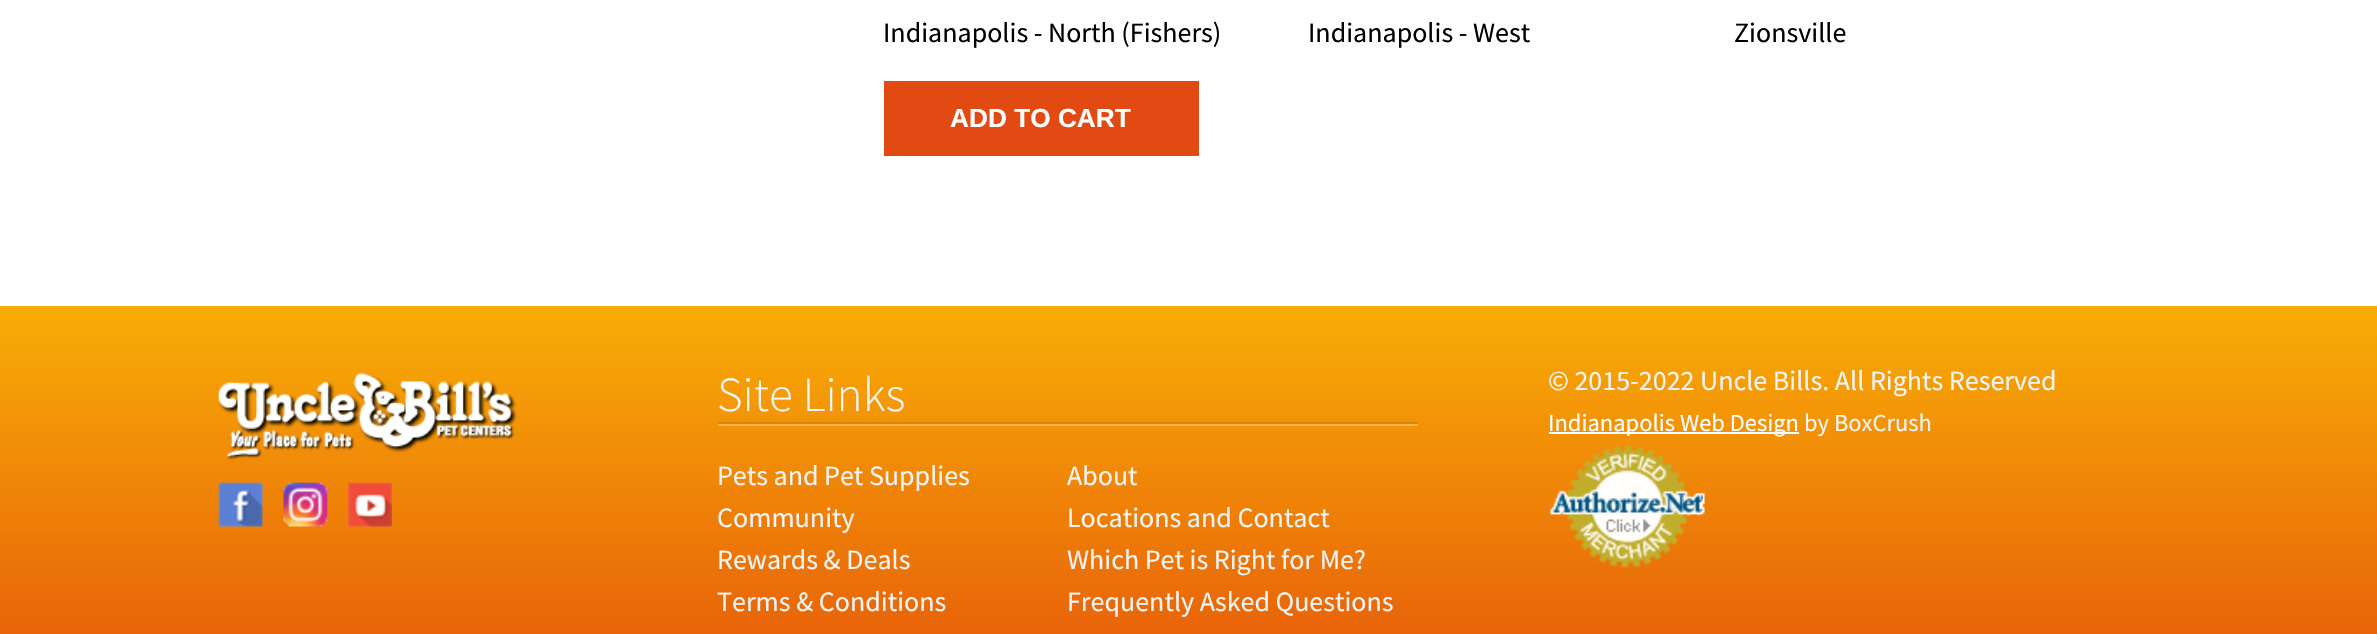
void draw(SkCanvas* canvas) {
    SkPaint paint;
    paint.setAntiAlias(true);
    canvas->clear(0xFFFFFFFF);
    SkFont font1(fontMgr->matchFamilyStyle("Source Sans Pro", SkFontStyle::Normal()), 28);
    font1.setSubpixel(true);
    paint.setColor(0xFF000000);
    canvas->drawString("Indianapolis - North (Fishers)", 883, 42, font1, paint);
    canvas->drawString("Indianapolis - West", 1308, 42, font1, paint);
    canvas->drawString("Zionsville", 1734, 42, font1, paint);
    paint.setColor(0xFFE24A14);
    canvas->drawRect(SkRect::MakeXYWH(884, 81, 315, 75), paint);
    SkFont font2(fontMgr->matchFamilyStyle("Liberation Sans", SkFontStyle::Bold()), 26.25f);
    font2.setSubpixel(true);
    paint.setColor(0xFFFFFFFF);
    canvas->drawString("ADD TO CART", 950, 127, font2, paint);
    {
        const SkColor colors[] = {0xFFF8AD07, 0xFFE1420A};
        const float stops[] = {0.01f, 1};
        const SkPoint ends[] = {{1189, 306}, {1189, 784}};
        paint.setShader(SkGradientShader::MakeLinear(ends, colors, stops, 2, SkTileMode::kClamp));
        paint.setAlpha(255);
    }
    canvas->drawRect(SkRect::MakeXYWH(0, 306, 2377, 328), paint);
    canvas->drawImageRect(SkImages::DeferredFromEncodedData(SkData::MakeFromFileName("img1.png")), SkRect::MakeXYWH(218, 372, 299, 88), SkSamplingOptions());
    canvas->drawImageRect(SkImages::DeferredFromEncodedData(SkData::MakeFromFileName("img2.png")), SkRect::MakeXYWH(218, 482, 45, 45), SkSamplingOptions());
    canvas->drawImageRect(SkImages::DeferredFromEncodedData(SkData::MakeFromFileName("img3.png")), SkRect::MakeXYWH(283, 482, 45, 45), SkSamplingOptions());
    canvas->drawImageRect(SkImages::DeferredFromEncodedData(SkData::MakeFromFileName("img4.png")), SkRect::MakeXYWH(348, 482, 44, 45), SkSamplingOptions());
    SkFont font3(fontMgr->matchFamilyStyle("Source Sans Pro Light", SkFontStyle(300, SkFontStyle::kNormal_Width, SkFontStyle::kUpright_Slant)), 49);
    font3.setSubpixel(true);
    paint.setShader(nullptr);
    paint.setColor(0xFFF4F4F4);
    canvas->drawString("Site Links", 717, 411, font3, paint);
    paint.setColor(0xFFDB8507);
    canvas->drawRect(SkRect::MakeXYWH(718, 422, 700, 2), paint);
    paint.setColor(0xFFF6B352);
    canvas->drawRect(SkRect::MakeXYWH(718, 424, 700, 2), paint);
    paint.setColor(0xFFF4F4F4);
    canvas->drawString("Pets and Pet Supplies", 717, 485, font1, paint);
    canvas->drawString("About", 1067, 485, font1, paint);
    canvas->drawString("Community", 717, 527, font1, paint);
    canvas->drawString("Locations and Contact", 1067, 527, font1, paint);
    canvas->drawString("Rewards & Deals", 717, 569, font1, paint);
    canvas->drawString("Which Pet is Right for Me?", 1067, 569, font1, paint);
    canvas->drawString("Terms & Conditions", 717, 611, font1, paint);
    canvas->drawString("Frequently Asked Questions", 1067, 611, font1, paint);
    canvas->drawString("© 2015-2022 Uncle Bills. All Rights Reserved", 1548, 390, font1, paint);
    paint.setColor(0xFFFFFFFF);
    canvas->drawRect(SkRect::MakeXYWH(1549, 432, 250, 2), paint);
    SkFont font4(fontMgr->matchFamilyStyle("Source Sans Pro", SkFontStyle::Normal()), 24.5f);
    font4.setSubpixel(true);
    canvas->drawString("Indianapolis Web Design", 1548, 431, font4, paint);
    paint.setColor(0xFFF4F4F4);
    canvas->drawString("by BoxCrush", 1804, 431, font4, paint);
    canvas->drawImageRect(SkImages::DeferredFromEncodedData(SkData::MakeFromFileName("img5.png")), SkRect::MakeXYWH(1550, 445, 155, 123), SkSamplingOptions());
}
